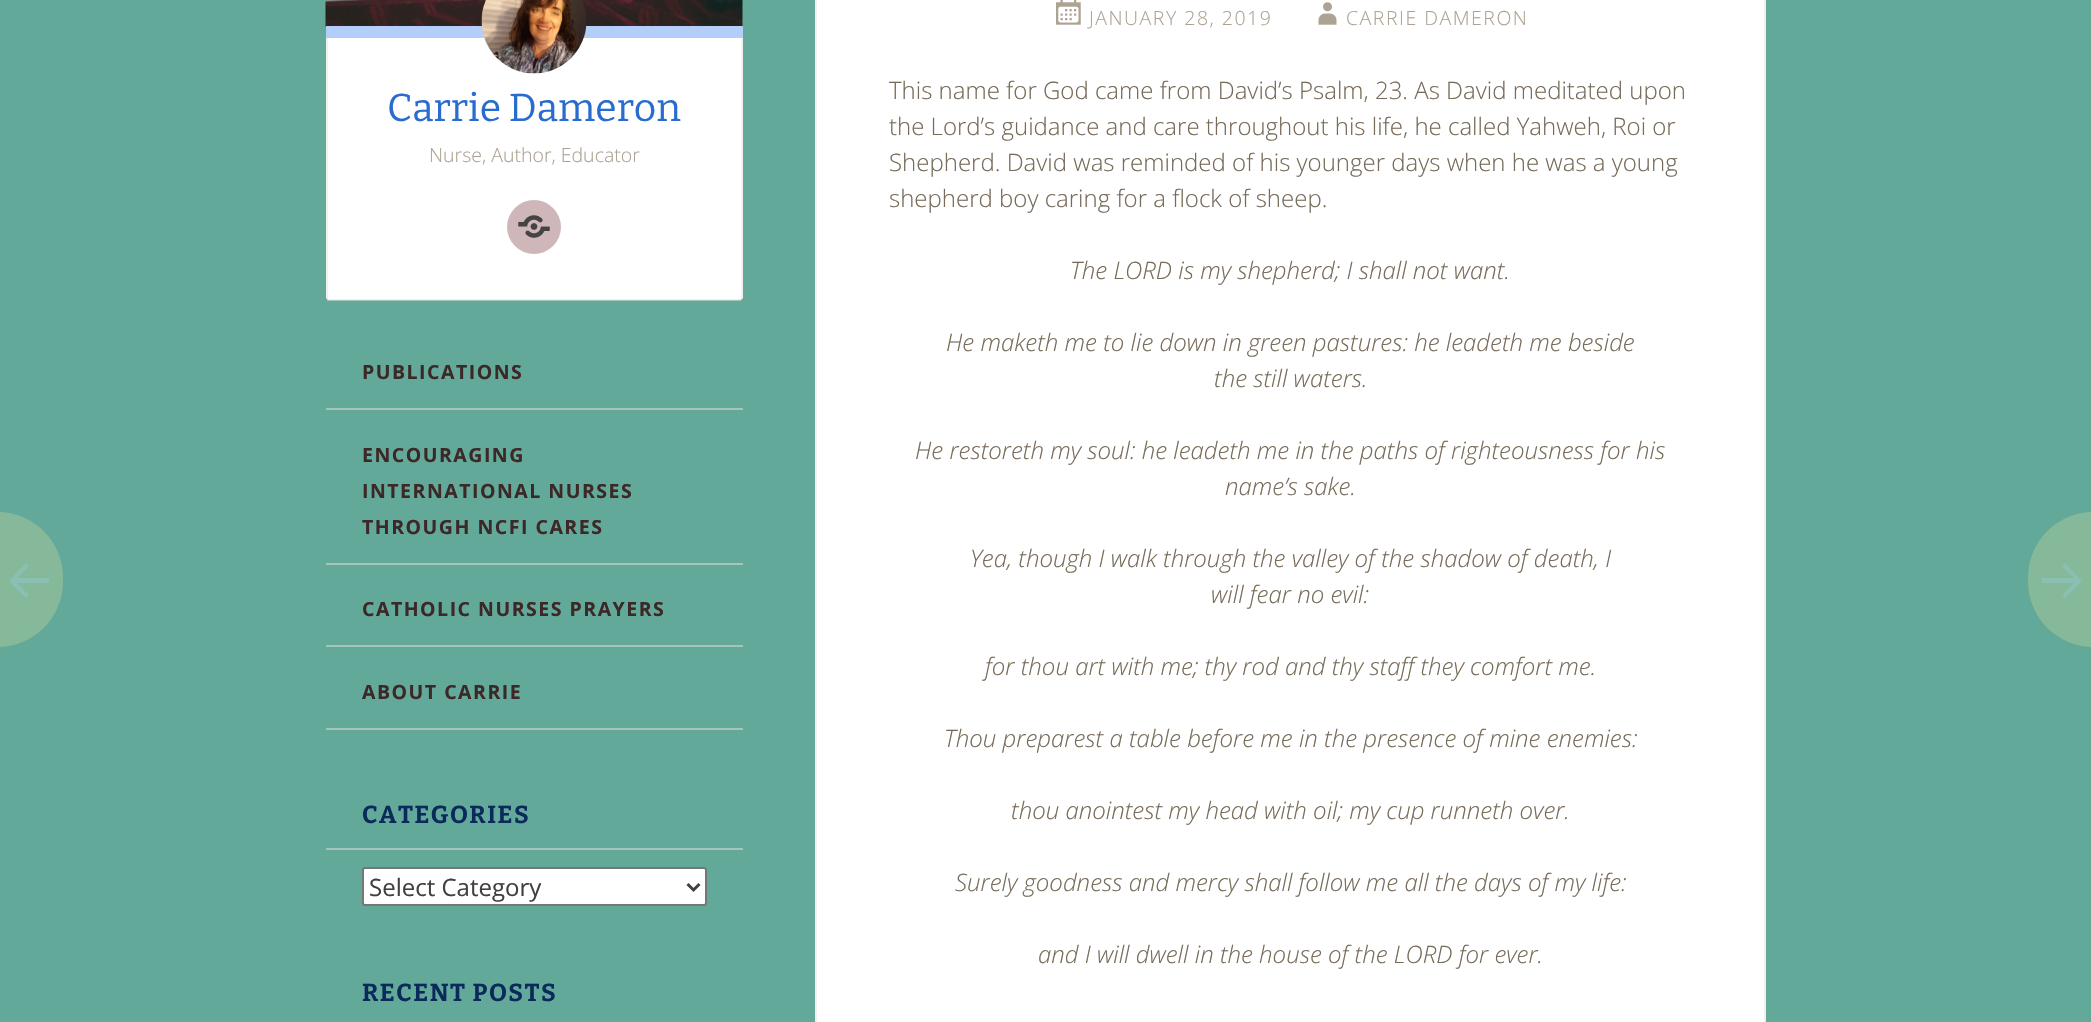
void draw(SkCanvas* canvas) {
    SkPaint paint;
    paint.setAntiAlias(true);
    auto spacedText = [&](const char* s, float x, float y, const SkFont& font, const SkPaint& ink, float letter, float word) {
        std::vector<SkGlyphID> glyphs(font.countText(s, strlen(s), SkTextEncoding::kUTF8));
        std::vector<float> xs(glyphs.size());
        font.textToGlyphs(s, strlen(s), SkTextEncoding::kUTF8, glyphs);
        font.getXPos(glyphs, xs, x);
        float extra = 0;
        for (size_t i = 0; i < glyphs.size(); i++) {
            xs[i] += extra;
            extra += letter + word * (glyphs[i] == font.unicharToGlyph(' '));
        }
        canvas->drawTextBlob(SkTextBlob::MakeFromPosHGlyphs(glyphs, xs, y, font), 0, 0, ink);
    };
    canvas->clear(0xFF63A999);
    canvas->drawImageRect(SkImages::DeferredFromEncodedData(SkData::MakeFromFileName("img1.png")), SkRect::MakeXYWH(325, 0, 418, 27), SkSamplingOptions());
    paint.setColor(0xFFFFFFFF);
    canvas->drawPath(SkPathBuilder().moveTo(326, 38).lineTo(743, 38).lineTo(743, 297).cubicTo(743, 298.5f, 741.5f, 300, 740, 300).lineTo(329, 300).cubicTo(327.5f, 300, 326, 298.5f, 326, 297).close().detach(), paint);
    paint.setColor(0x80E4E1DC);
    canvas->drawRect(SkRect::MakeXYWH(741, 38, 2, 261), paint);
    canvas->drawRect(SkRect::MakeXYWH(327, 299, 414, 2), paint);
    canvas->drawRect(SkRect::MakeXYWH(326, 38, 2, 261), paint);
    paint.setColor(0xFFB3CFF9);
    canvas->drawRect(SkRect::MakeXYWH(326, 26, 417, 12), paint);
    canvas->drawImageRect(SkImages::DeferredFromEncodedData(SkData::MakeFromFileName("img2.png")), SkRect::MakeXYWH(481, 0, 106, 74), SkSamplingOptions());
    SkFont font1(fontMgr->matchFamilyStyle("Bitter", SkFontStyle::Normal()), 39);
    font1.setSubpixel(true);
    paint.setColor(0xFF296CD0);
    canvas->drawString("Carrie Dameron", 387, 121, font1, paint);
    SkFont font2(fontMgr->matchFamilyStyle("Open Sans", SkFontStyle(300, SkFontStyle::kNormal_Width, SkFontStyle::kUpright_Slant)), 19.5f);
    font2.setSubpixel(true);
    paint.setColor(0xFFADA393);
    canvas->drawString("Nurse, Author, Educator", 429, 162, font2, paint);
    paint.setColor(0xFFCFB7B9);
    canvas->drawCircle(534, 227, 27, paint);
    canvas->drawImageRect(SkImages::DeferredFromEncodedData(SkData::MakeFromFileName("img3.png")), SkRect::MakeXYWH(518, 215, 32, 23), SkSamplingOptions());
    paint.setColor(0xFFA4C5BB);
    canvas->drawRect(SkRect::MakeXYWH(326, 408, 417, 2), paint);
    SkFont font3(fontMgr->matchFamilyStyle("Open Sans", SkFontStyle::Bold()), 19.5f);
    font3.setSubpixel(true);
    paint.setColor(0xFF3D2828);
    spacedText("PUBLICATIONS", 362, 379, font3, paint, 1.5f, 0);
    paint.setColor(0xFFA4C5BB);
    canvas->drawRect(SkRect::MakeXYWH(326, 563, 417, 2), paint);
    paint.setColor(0xFF3D2828);
    spacedText("ENCOURAGING", 362, 462, font3, paint, 1.5f, 0);
    spacedText("INTERNATIONAL NURSES", 362, 498, font3, paint, 1.5f, 0);
    spacedText("THROUGH NCFI CARES", 362, 534, font3, paint, 1.5f, 0);
    paint.setColor(0xFFA4C5BB);
    canvas->drawRect(SkRect::MakeXYWH(326, 645, 417, 2), paint);
    paint.setColor(0xFF3D2828);
    spacedText("CATHOLIC NURSES PRAYERS", 362, 616, font3, paint, 1.5f, 0);
    paint.setColor(0xFFA4C5BB);
    canvas->drawRect(SkRect::MakeXYWH(326, 728, 417, 2), paint);
    paint.setColor(0xFF3D2828);
    spacedText("ABOUT CARRIE", 362, 699, font3, paint, 1.5f, 0);
    paint.setColor(0xFFA4C5BB);
    canvas->drawRect(SkRect::MakeXYWH(326, 848, 417, 2), paint);
    SkFont font4(fontMgr->matchFamilyStyle("Bitter", SkFontStyle::Bold()), 24.5f);
    font4.setSubpixel(true);
    paint.setColor(0xFF0A2A5B);
    spacedText("CATEGORIES", 362, 823, font4, paint, 1.5f, 0);
    paint.setColor(0xFFFFFFFF);
    canvas->drawRoundRect(SkRect::MakeXYWH(363, 868, 343, 37), 2, 2, paint);
    paint.setStyle(SkPaint::kStroke_Style);
    paint.setStrokeWidth(2);
    paint.setColor(0xFF767676);
    canvas->drawRoundRect(SkRect::MakeXYWH(363, 868, 343, 37), 2, 2, paint);
    paint.setStrokeWidth(3);
    paint.setColor(0xFF404040);
    canvas->drawPath(SkPathBuilder().moveTo(687.5f, 884).lineTo(693.5f, 890).lineTo(699.5f, 884).detach(), paint);
    SkFont font5(fontMgr->matchFamilyStyle("Open Sans", SkFontStyle::Normal()), 24);
    font5.setSubpixel(true);
    paint.setStyle(SkPaint::kFill_Style);
    canvas->drawString("Select Category", 369, 896, font5, paint);
    paint.setColor(0xFF0A2A5B);
    spacedText("RECENT POSTS", 362, 1001, font4, paint, 1.5f, 0);
    paint.setColor(0xFFFFFFFF);
    canvas->drawRect(SkRect::MakeXYWH(816, -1, 949, 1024), paint);
    paint.setStyle(SkPaint::kStroke_Style);
    paint.setStrokeWidth(2);
    paint.setColor(0xFFF2F0EE);
    canvas->drawRect(SkRect::MakeXYWH(816, -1, 949, 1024), paint);
    canvas->drawImageRect(SkImages::DeferredFromEncodedData(SkData::MakeFromFileName("img4.png")), SkRect::MakeXYWH(1056, 0, 25, 25), SkSamplingOptions());
    paint.setStyle(SkPaint::kFill_Style);
    paint.setColor(0xFFADA393);
    spacedText("JANUARY 28, 2019", 1089, 25, font2, paint, 1.5f, 0);
    canvas->drawImageRect(SkImages::DeferredFromEncodedData(SkData::MakeFromFileName("img5.png")), SkRect::MakeXYWH(1318, 2, 19, 23), SkSamplingOptions());
    spacedText("CARRIE DAMERON", 1346, 25, font2, paint, 1.5f, 0);
    SkFont font6(fontMgr->matchFamilyStyle("Open Sans", SkFontStyle(300, SkFontStyle::kNormal_Width, SkFontStyle::kUpright_Slant)), 24);
    font6.setSubpixel(true);
    paint.setColor(0xFF776B59);
    canvas->drawString("This name for God came from David’s Psalm, 23. As David meditated upon", 889, 99, font6, paint);
    canvas->drawString("the Lord’s guidance and care throughout his life, he called Yahweh, Roi or", 889, 135, font6, paint);
    canvas->drawString("Shepherd. David was reminded of his younger days when he was a young", 889, 171, font6, paint);
    canvas->drawString("shepherd boy caring for a flock of sheep.", 889, 207, font6, paint);
    SkFont font7(fontMgr->matchFamilyStyle("Open Sans", SkFontStyle(300, SkFontStyle::kNormal_Width, SkFontStyle::kItalic_Slant)), 24);
    font7.setSubpixel(true);
    canvas->drawString("The LORD is my shepherd; I shall not want.", 1070, 279, font7, paint);
    canvas->drawString("He maketh me to lie down in green pastures: he leadeth me beside", 946, 351, font7, paint);
    canvas->drawString("the still waters.", 1214, 387, font7, paint);
    canvas->drawString("He restoreth my soul: he leadeth me in the paths of righteousness for his", 915, 459, font7, paint);
    canvas->drawString("name’s sake.", 1225, 495, font7, paint);
    canvas->drawString("Yea, though I walk through the valley of the shadow of death, I", 970, 567, font7, paint);
    canvas->drawString("will fear no evil:", 1211, 603, font7, paint);
    canvas->drawString("for thou art with me; thy rod and thy staff they comfort me.", 985, 675, font7, paint);
    canvas->drawString("Thou preparest a table before me in the presence of mine enemies:", 944, 747, font7, paint);
    canvas->drawString("thou anointest my head with oil; my cup runneth over.", 1011, 819, font7, paint);
    canvas->drawString("Surely goodness and mercy shall follow me all the days of my life:", 955, 891, font7, paint);
    canvas->drawString("and I will dwell in the house of the LORD for ever.", 1038, 963, font7, paint);
    paint.setColor(0xFF86B999);
    canvas->drawRoundRect(SkRect::MakeXYWH(-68, 512, 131, 135), 67.5f, 67.5f, paint);
    paint.setColor(0xFF8ABFB3);
    canvas->drawPath(SkPathBuilder().moveTo(26, 563).lineTo(29, 566).lineTo(17, 578).lineTo(49, 578).lineTo(49, 583).lineTo(17, 583).lineTo(29, 595).lineTo(26, 598).lineTo(9, 581).close().detach(), paint);
    paint.setColor(0xFF86B999);
    canvas->drawRoundRect(SkRect::MakeXYWH(2028, 512, 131, 135), 67.5f, 67.5f, paint);
    paint.setColor(0xFF8ABFB3);
    canvas->drawPath(SkPathBuilder().moveTo(2065, 563).lineTo(2082, 581).lineTo(2065, 598).lineTo(2062, 595).lineTo(2074, 583).lineTo(2042, 583).lineTo(2042, 578).lineTo(2074, 578).lineTo(2062, 566).close().detach(), paint);
}
